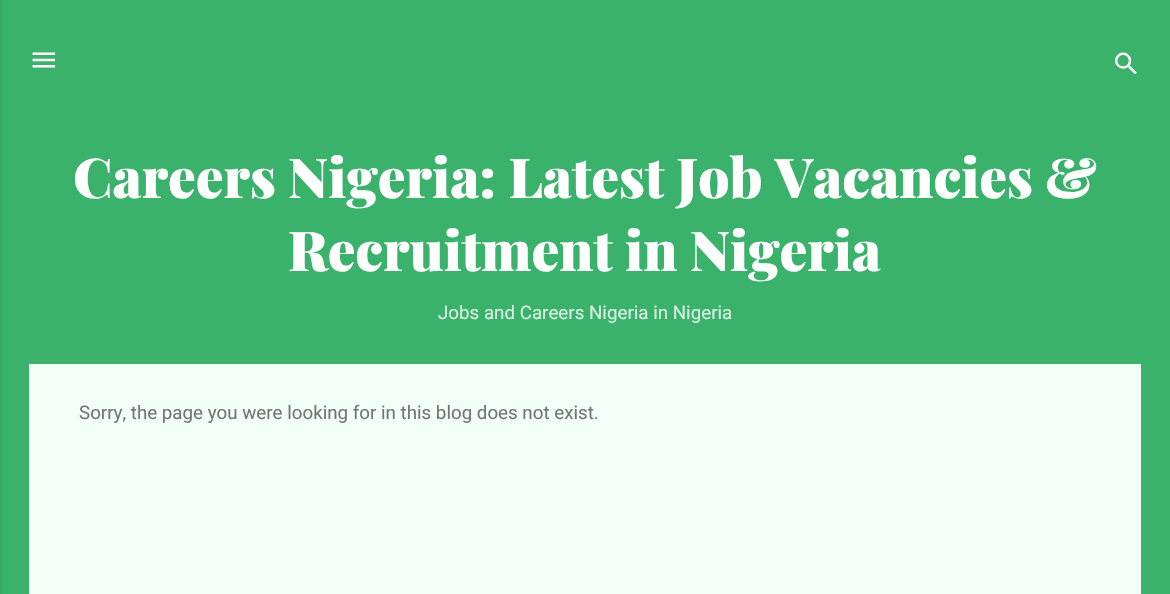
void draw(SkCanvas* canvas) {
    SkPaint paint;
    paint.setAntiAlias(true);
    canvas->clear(0xFF3BB26B);
    paint.setColor(0x1A000000);
    paint.setMaskFilter(SkMaskFilter::MakeBlur(kNormal_SkBlurStyle, 2));
    canvas->drawRect(SkRect::MakeXYWH(-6, 1, 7, 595), paint);
    paint.setMaskFilter(nullptr);
    canvas->drawImageRect(SkImages::DeferredFromEncodedData(SkData::MakeFromFileName("img1.png")), SkRect::MakeXYWH(32, 52, 23, 16), SkSamplingOptions());
    canvas->drawImageRect(SkImages::DeferredFromEncodedData(SkData::MakeFromFileName("img2.png")), SkRect::MakeXYWH(1115, 52, 22, 23), SkSamplingOptions());
    SkFont font1(fontMgr->matchFamilyStyle("Playfair Display", SkFontStyle(900, SkFontStyle::kNormal_Width, SkFontStyle::kUpright_Slant)), 55);
    font1.setSubpixel(true);
    paint.setColor(0xFFFFFFFF);
    canvas->drawString("Careers Nigeria: Latest Job Vacancies &", 73, 198, font1, paint);
    canvas->drawString("Recruitment in Nigeria", 288, 271, font1, paint);
    SkFont font2(fontMgr->matchFamilyStyle("Roboto", SkFontStyle::Normal()), 18.75f);
    font2.setSubpixel(true);
    paint.setColor(0xFFD8F0E1);
    canvas->drawString("Jobs and Careers Nigeria in Nigeria", 438, 319, font2, paint);
    paint.setColor(0xFFF1FFF6);
    canvas->drawRect(SkRect::MakeXYWH(29, 364, 1112, 230), paint);
    paint.setColor(0xFF757575);
    canvas->drawString("Sorry, the page you were looking for in this blog does not exist.", 79, 419, font2, paint);
}
